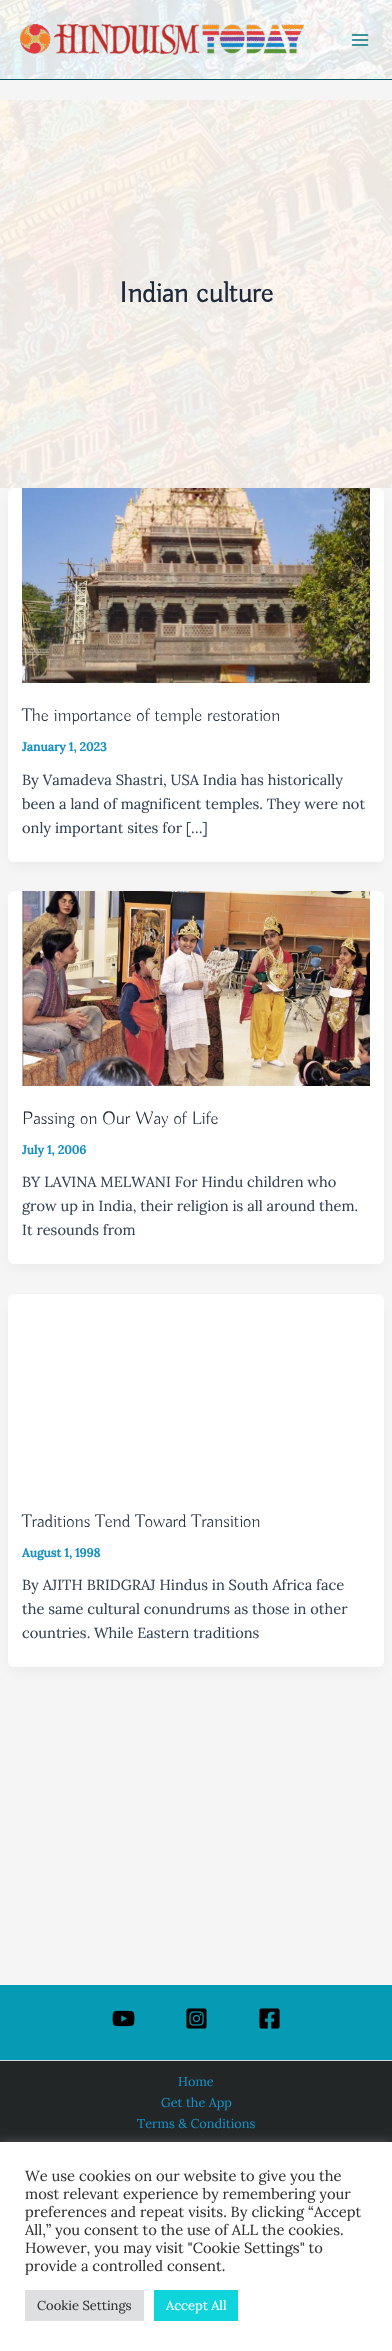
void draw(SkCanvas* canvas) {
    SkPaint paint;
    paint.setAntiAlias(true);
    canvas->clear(0xFFF5F5F5);
    canvas->drawImageRect(SkImages::DeferredFromEncodedData(SkData::MakeFromFileName("img1.png")), SkRect::MakeXYWH(0, 0, 392, 79), SkSamplingOptions());
    paint.setColor(0xFF045664);
    canvas->drawRect(SkRect::MakeXYWH(0, 79, 392, 1), paint);
    canvas->drawImageRect(SkImages::DeferredFromEncodedData(SkData::MakeFromFileName("img2.png")), SkRect::MakeXYWH(20, 24, 284, 31), SkSamplingOptions());
    canvas->drawImageRect(SkImages::DeferredFromEncodedData(SkData::MakeFromFileName("img3.png")), SkRect::MakeXYWH(351, 34, 18, 12), SkSamplingOptions());
    canvas->drawImageRect(SkImages::DeferredFromEncodedData(SkData::MakeFromFileName("img4.png")), SkRect::MakeXYWH(0, 100, 392, 388), SkSamplingOptions());
    SkFont font1(fontMgr->matchFamilyStyle("Buda", SkFontStyle::Bold()), 29);
    font1.setSubpixel(true);
    paint.setColor(0xFF1E293B);
    canvas->drawString("Indian culture", 119, 302, font1, paint);
    paint.setColor(0x0D101828);
    paint.setMaskFilter(SkMaskFilter::MakeBlur(kNormal_SkBlurStyle, 7.5f));
    canvas->drawRoundRect(SkRect::MakeXYWH(10, 496, 372, 370), 4, 4, paint);
    paint.setMaskFilter(nullptr);
    paint.setColor(0xFFFFFFFF);
    canvas->drawRoundRect(SkRect::MakeXYWH(8, 488, 376, 374), 6, 6, paint);
    canvas->drawImageRect(SkImages::DeferredFromEncodedData(SkData::MakeFromFileName("img5.png")), SkRect::MakeXYWH(22, 488, 348, 195), SkSamplingOptions());
    SkFont font2(fontMgr->matchFamilyStyle("Buda", SkFontStyle(300, SkFontStyle::kNormal_Width, SkFontStyle::kUpright_Slant)), 18.25f);
    font2.setSubpixel(true);
    paint.setColor(0xFF1E293B);
    canvas->drawString("The importance of temple restoration", 22, 721, font2, paint);
    SkFont font3(fontMgr->matchFamilyStyle("Lora", SkFontStyle::Bold()), 12);
    font3.setSubpixel(true);
    paint.setColor(0xFF138FC5);
    canvas->drawString("January 1, 2023", 22, 751, font3, paint);
    SkFont font4(fontMgr->matchFamilyStyle("Lora", SkFontStyle::Normal()), 14.6f);
    font4.setSubpixel(true);
    paint.setColor(0xFF334155);
    canvas->drawString("By Vamadeva Shastri, USA India has historically", 22, 785, font4, paint);
    canvas->drawString("been a land of magnificent temples. They were not", 22, 809, font4, paint);
    canvas->drawString("only important sites for […]", 22, 833, font4, paint);
    paint.setColor(0x0D101828);
    paint.setMaskFilter(SkMaskFilter::MakeBlur(kNormal_SkBlurStyle, 7.5f));
    canvas->drawRoundRect(SkRect::MakeXYWH(10, 899, 372, 369), 4, 4, paint);
    paint.setMaskFilter(nullptr);
    paint.setColor(0xFFFFFFFF);
    canvas->drawRoundRect(SkRect::MakeXYWH(8, 891, 376, 373), 6, 6, paint);
    canvas->drawImageRect(SkImages::DeferredFromEncodedData(SkData::MakeFromFileName("img6.png")), SkRect::MakeXYWH(22, 891, 348, 195), SkSamplingOptions());
    paint.setColor(0xFF1E293B);
    canvas->drawString("Passing on Our Way of Life", 22, 1124, font2, paint);
    paint.setColor(0xFF138FC5);
    canvas->drawString("July 1, 2006", 22, 1154, font3, paint);
    paint.setColor(0xFF334155);
    canvas->drawString("BY LAVINA MELWANI For Hindu children who", 22, 1187, font4, paint);
    canvas->drawString("grow up in India, their religion is all around them.", 22, 1211, font4, paint);
    canvas->drawString("It resounds from", 22, 1235, font4, paint);
    paint.setColor(0x0D101828);
    paint.setMaskFilter(SkMaskFilter::MakeBlur(kNormal_SkBlurStyle, 7.5f));
    canvas->drawRoundRect(SkRect::MakeXYWH(10, 1302, 372, 369), 4, 4, paint);
    paint.setMaskFilter(nullptr);
    paint.setColor(0xFFFFFFFF);
    canvas->drawRoundRect(SkRect::MakeXYWH(8, 1294, 376, 373), 6, 6, paint);
    paint.setColor(0xFF1E293B);
    canvas->drawString("Traditions Tend Toward Transition", 22, 1527, font2, paint);
    paint.setColor(0xFF138FC5);
    canvas->drawString("August 1, 1998", 22, 1557, font3, paint);
    paint.setColor(0xFF334155);
    canvas->drawString("By AJITH BRIDGRAJ Hindus in South Africa face", 22, 1590, font4, paint);
    canvas->drawString("the same cultural conundrums as those in other", 22, 1614, font4, paint);
    canvas->drawString("countries. While Eastern traditions", 22, 1638, font4, paint);
    paint.setColor(0xFF069BB5);
    canvas->drawRect(SkRect::MakeXYWH(0, 1985, 392, 75), paint);
    canvas->drawImageRect(SkImages::DeferredFromEncodedData(SkData::MakeFromFileName("img7.png")), SkRect::MakeXYWH(112, 2010, 23, 17), SkSamplingOptions());
    canvas->drawImageRect(SkImages::DeferredFromEncodedData(SkData::MakeFromFileName("img8.png")), SkRect::MakeXYWH(186, 2008, 21, 21), SkSamplingOptions());
    canvas->drawImageRect(SkImages::DeferredFromEncodedData(SkData::MakeFromFileName("img9.png")), SkRect::MakeXYWH(259, 2008, 21, 21), SkSamplingOptions());
    paint.setColor(0xFF232627);
    canvas->drawRect(SkRect::MakeXYWH(0, 2061, 392, 81), paint);
    paint.setColor(0xFFD1D5DB);
    canvas->drawRect(SkRect::MakeXYWH(0, 2060, 392, 1), paint);
    SkFont font5(fontMgr->matchFamilyStyle("Lora", SkFontStyle::Normal()), 12.75f);
    font5.setSubpixel(true);
    paint.setColor(0xFF138FC5);
    canvas->drawString("Home", 178, 2086, font5, paint);
    canvas->drawString("Get the App", 161, 2107, font5, paint);
    canvas->drawString("Terms & Conditions", 137, 2128, font5, paint);
    paint.setColor(0x4DACABAB);
    paint.setMaskFilter(SkMaskFilter::MakeBlur(kNormal_SkBlurStyle, 5));
    canvas->drawRect(SkRect::MakeXYWH(0, 2141, 392, 209), paint);
    paint.setMaskFilter(nullptr);
    paint.setColor(0xFFFFFFFF);
    canvas->drawRect(SkRect::MakeXYWH(0, 2142, 392, 209), paint);
    SkFont font6(fontMgr->matchFamilyStyle("Lora", SkFontStyle::Normal()), 14.7f);
    font6.setSubpixel(true);
    paint.setColor(0xFF333333);
    canvas->drawString("We use cookies on our website to give you the", 25, 2181, font6, paint);
    canvas->drawString("most relevant experience by remembering your", 25, 2199, font6, paint);
    canvas->drawString("preferences and repeat visits. By clicking “Accept", 25, 2217, font6, paint);
    canvas->drawString("All,” you consent to the use of ALL the cookies.", 25, 2235, font6, paint);
    canvas->drawString("However, you may visit \"Cookie Settings\" to", 25, 2253, font6, paint);
    canvas->drawString("provide a controlled consent.", 25, 2271, font6, paint);
    paint.setColor(0xFFDEDFE0);
    canvas->drawRect(SkRect::MakeXYWH(25, 2290, 119, 31), paint);
    SkFont font7(fontMgr->matchFamilyStyle("Lora", SkFontStyle::Normal()), 13);
    font7.setSubpixel(true);
    paint.setColor(0xFF333333);
    canvas->drawString("Cookie Settings", 37, 2310, font7, paint);
    paint.setColor(0xFF0FD4DB);
    canvas->drawRect(SkRect::MakeXYWH(154, 2290, 84, 31), paint);
    paint.setColor(0xFFFFFFFF);
    canvas->drawString("Accept All", 166, 2310, font7, paint);
}
